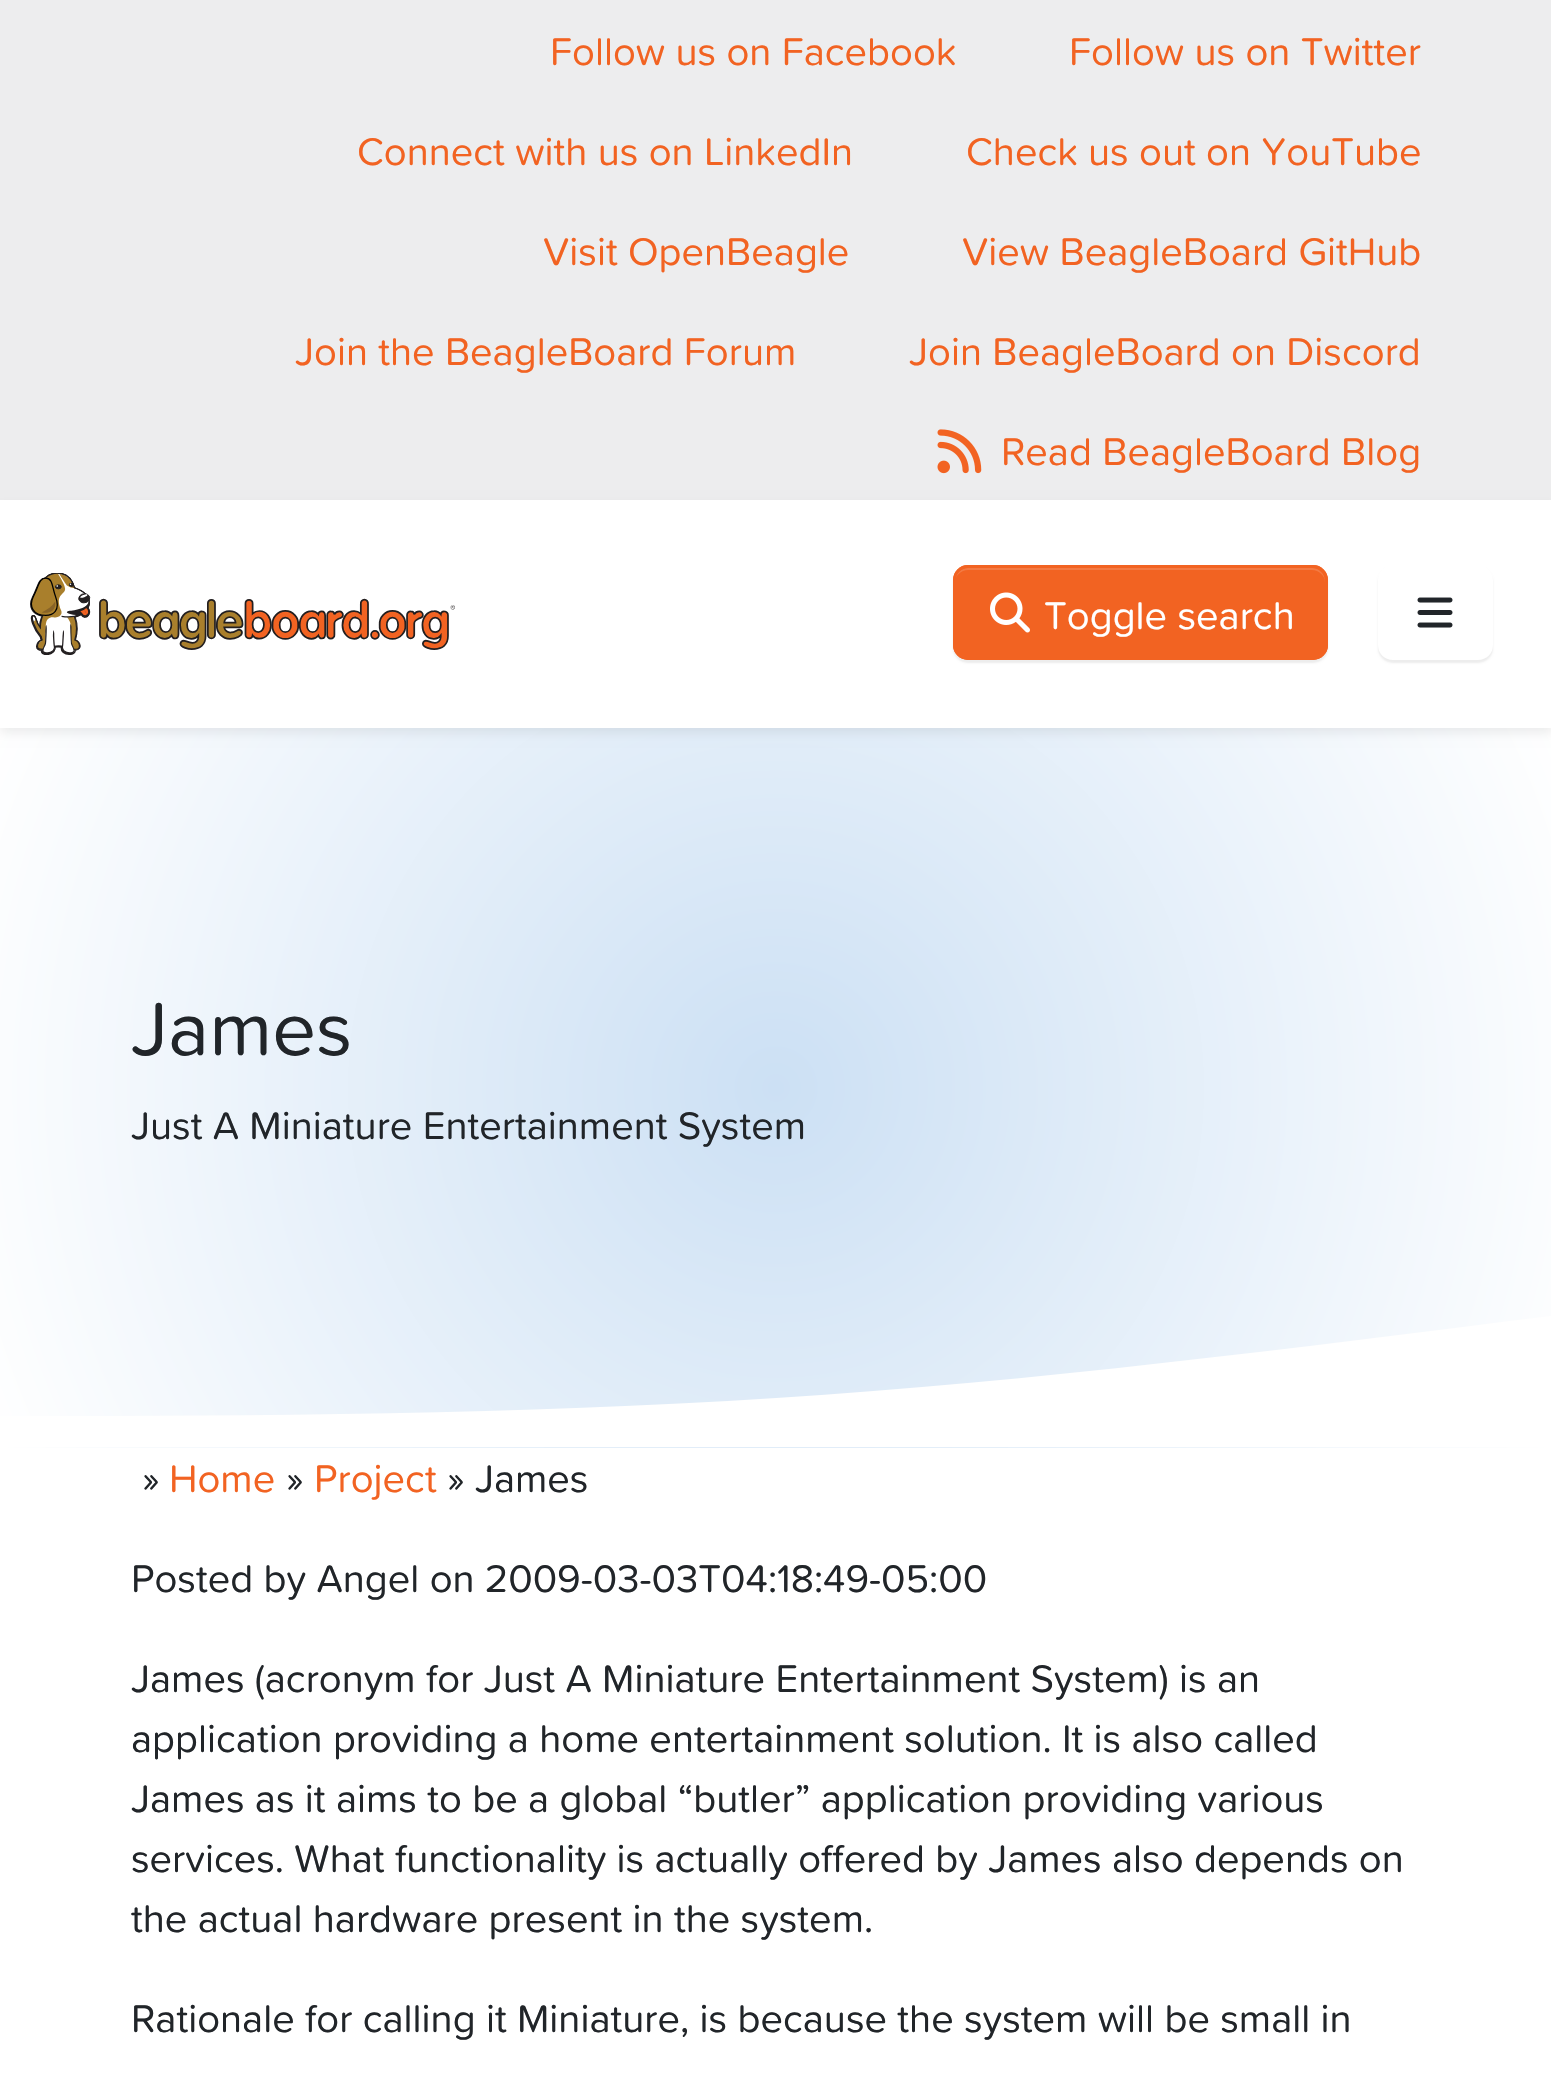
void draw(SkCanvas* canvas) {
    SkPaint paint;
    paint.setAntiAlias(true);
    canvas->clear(0xFFFFFFFF);
    paint.setColor(0xFFEDEDEE);
    canvas->drawRect(SkRect::MakeXYWH(0, 0, 1551, 500), paint);
    SkFont font1(fontMgr->matchFamilyStyle("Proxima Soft", SkFontStyle::Normal()), 40);
    font1.setSubpixel(true);
    paint.setColor(0xFFF26322);
    canvas->drawString("Follow us on Facebook", 550, 65, font1, paint);
    canvas->drawString("Follow us on Twitter", 1069, 65, font1, paint);
    canvas->drawString("Connect with us on LinkedIn", 357, 165, font1, paint);
    canvas->drawString("Check us out on YouTube", 966, 165, font1, paint);
    canvas->drawString("Visit OpenBeagle", 543, 265, font1, paint);
    canvas->drawString("View BeagleBoard GitHub", 962, 265, font1, paint);
    canvas->drawString("Join the BeagleBoard Forum", 295, 365, font1, paint);
    canvas->drawString("Join BeagleBoard on Discord", 909, 365, font1, paint);
    canvas->drawImageRect(SkImages::DeferredFromEncodedData(SkData::MakeFromFileName("img1.png")), SkRect::MakeXYWH(937, 429, 45, 45), SkSamplingOptions());
    canvas->drawString("Read BeagleBoard Blog", 1001, 465, font1, paint);
    {
        const SkColor colors[] = {0xFFCCE0F4, 0xFFFFFFFF};
        const float stops[] = {0, 1};
        paint.setShader(SkGradientShader::MakeRadial({776, 1088}, 856, colors, stops, 2, SkTileMode::kClamp));
        paint.setAlpha(255);
    }
    canvas->drawRect(SkRect::MakeXYWH(0, 728, 1551, 720), paint);
    paint.setShader(nullptr);
    paint.setColor(0x12000000);
    paint.setMaskFilter(SkMaskFilter::MakeBlur(kNormal_SkBlurStyle, 5));
    canvas->drawRect(SkRect::MakeXYWH(0, 505, 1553, 228), paint);
    paint.setMaskFilter(nullptr);
    paint.setColor(0xFFFFFFFF);
    canvas->drawRect(SkRect::MakeXYWH(0, 500, 1551, 228), paint);
    canvas->drawImageRect(SkImages::DeferredFromEncodedData(SkData::MakeFromFileName("img2.png")), SkRect::MakeXYWH(30, 573, 425, 82), SkSamplingOptions());
    paint.setColor(0x12000000);
    paint.setMaskFilter(SkMaskFilter::MakeBlur(kNormal_SkBlurStyle, 1));
    canvas->drawRoundRect(SkRect::MakeXYWH(953, 568, 375, 95), 15, 15, paint);
    paint.setMaskFilter(nullptr);
    paint.setColor(0xFFF26322);
    canvas->drawRoundRect(SkRect::MakeXYWH(953, 565, 375, 95), 15, 15, paint);
    paint.setColor(0xFFF47A43);
    canvas->drawPath(SkPathBuilder().moveTo(968, 570).lineTo(1312, 570).cubicTo(1319, 570, 1325, 576, 1325, 582).lineTo(1325, 581).cubicTo(1325, 574, 1319, 568, 1312, 568).lineTo(968, 568).cubicTo(961, 568, 955, 574, 955, 581).lineTo(955, 582).cubicTo(955, 576, 961, 570, 968, 570).close().detach(), paint);
    paint.setStyle(SkPaint::kStroke_Style);
    paint.setStrokeWidth(3);
    paint.setColor(0xFFF26322);
    canvas->drawRoundRect(SkRect::MakeXYWH(954.5f, 566.5f, 372, 92), 13.5f, 13.5f, paint);
    canvas->drawImageRect(SkImages::DeferredFromEncodedData(SkData::MakeFromFileName("img3.png")), SkRect::MakeXYWH(990, 592, 40, 41), SkSamplingOptions());
    paint.setStyle(SkPaint::kFill_Style);
    paint.setColor(0xFFFFFFFF);
    canvas->drawString("Toggle search", 1044, 629, font1, paint);
    canvas->save();
    canvas->clipPath(SkPathBuilder(SkPathFillType::kEvenOdd).moveTo(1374, 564).lineTo(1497, 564).lineTo(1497, 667).lineTo(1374, 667).close().moveTo(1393, 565).lineTo(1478, 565).cubicTo(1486.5f, 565, 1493, 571.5f, 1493, 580).lineTo(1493, 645).cubicTo(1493, 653.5f, 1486.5f, 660, 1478, 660).lineTo(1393, 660).cubicTo(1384.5f, 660, 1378, 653.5f, 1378, 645).lineTo(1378, 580).cubicTo(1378, 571.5f, 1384.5f, 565, 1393, 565).close().detach(), true);
    paint.setColor(0x12000000);
    paint.setMaskFilter(SkMaskFilter::MakeBlur(kNormal_SkBlurStyle, 1));
    canvas->drawRoundRect(SkRect::MakeXYWH(1378, 568, 115, 95), 15, 15, paint);
    paint.setMaskFilter(nullptr);
    canvas->restore();
    canvas->drawImageRect(SkImages::DeferredFromEncodedData(SkData::MakeFromFileName("img4.png")), SkRect::MakeXYWH(1417, 597, 36, 31), SkSamplingOptions());
    paint.setColor(0xFFFFFFFF);
    canvas->drawPath(SkPathBuilder().moveTo(-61, 1416).cubicTo(218, 1416, 497, 1416, 776, 1398).cubicTo(1056, 1380, 1334, 1343, 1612, 1308).lineTo(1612, 1447).lineTo(-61, 1447).close().detach(), paint);
    SkFont font2(fontMgr->matchFamilyStyle("Proxima Soft", SkFontStyle::Normal()), 78);
    font2.setSubpixel(true);
    paint.setColor(0xFF212529);
    canvas->drawString("James", 131, 1055, font2, paint);
    canvas->drawString("Just A Miniature Entertainment System", 131, 1139, font1, paint);
    canvas->drawString("»", 142, 1492, font1, paint);
    paint.setColor(0xFFF26322);
    canvas->drawString("Home", 169, 1492, font1, paint);
    paint.setColor(0xFF212529);
    canvas->drawString("»", 286, 1492, font1, paint);
    paint.setColor(0xFFF26322);
    canvas->drawString("Project", 314, 1492, font1, paint);
    paint.setColor(0xFF212529);
    canvas->drawString("» James", 447, 1492, font1, paint);
    canvas->drawString("Posted by Angel on 2009-03-03T04:18:49-05:00", 131, 1592, font1, paint);
    canvas->drawString("James (acronym for Just A Miniature Entertainment System) is an", 131, 1692, font1, paint);
    canvas->drawString("application providing a home entertainment solution. It is also called", 131, 1752, font1, paint);
    canvas->drawString("James as it aims to be a global “butler” application providing various", 131, 1812, font1, paint);
    canvas->drawString("services. What functionality is actually offered by James also depends on", 131, 1872, font1, paint);
    canvas->drawString("the actual hardware present in the system.", 131, 1932, font1, paint);
    canvas->drawString("Rationale for calling it Miniature, is because the system will be small in", 131, 2032, font1, paint);
}
